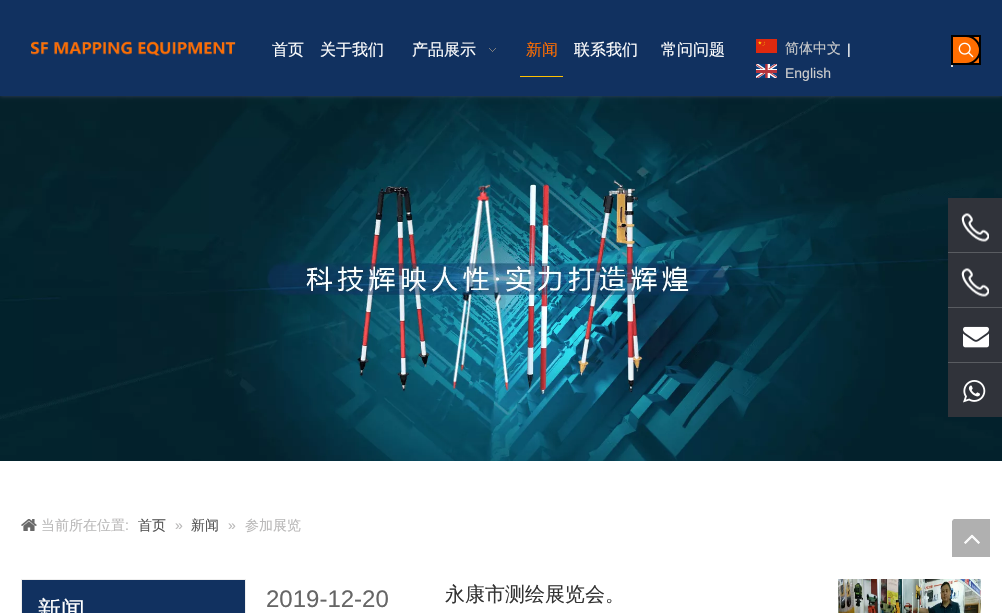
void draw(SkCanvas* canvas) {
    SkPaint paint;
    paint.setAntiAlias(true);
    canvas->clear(0xFFFFFFFF);
    canvas->drawImageRect(SkImages::DeferredFromEncodedData(SkData::MakeFromFileName("img9.png")), SkRect::MakeXYWH(0, 96, 1002, 365), SkSamplingOptions());
    paint.setColor(0xFF38415B);
    paint.setMaskFilter(SkMaskFilter::MakeBlur(kNormal_SkBlurStyle, 2));
    canvas->drawRect(SkRect::MakeXYWH(0, 0, 1002, 96), paint);
    paint.setMaskFilter(nullptr);
    paint.setColor(0xFF113160);
    canvas->drawRect(SkRect::MakeXYWH(0, 0, 1002, 96), paint);
    canvas->drawImageRect(SkImages::DeferredFromEncodedData(SkData::MakeFromFileName("img1.png")), SkRect::MakeXYWH(31, 41, 205, 15), SkSamplingOptions());
    SkFont font1(fontMgr->matchFamilyStyle("WenQuanYi Zen Hei", SkFontStyle(500, SkFontStyle::kNormal_Width, SkFontStyle::kUpright_Slant)), 16);
    font1.setSubpixel(true);
    paint.setColor(0xFFFFFFFF);
    canvas->drawString("首页", 272, 55, font1, paint);
    canvas->drawString("关于我们", 320, 55, font1, paint);
    canvas->drawString("产品展示", 412, 55, font1, paint);
    canvas->drawImageRect(SkImages::DeferredFromEncodedData(SkData::MakeFromFileName("img2.png")), SkRect::MakeXYWH(489, 48, 7, 4), SkSamplingOptions());
    paint.setColor(0xFFFFC000);
    canvas->drawRect(SkRect::MakeXYWH(520, 76, 43, 1), paint);
    paint.setColor(0xFFFF6D00);
    canvas->drawString("新闻", 526, 55, font1, paint);
    paint.setColor(0xFFFFFFFF);
    canvas->drawString("联系我们", 574, 55, font1, paint);
    canvas->drawString("常问问题", 661, 55, font1, paint);
    canvas->drawImageRect(SkImages::DeferredFromEncodedData(SkData::MakeFromFileName("img3.png")), SkRect::MakeXYWH(756, 39, 21, 14), SkSamplingOptions());
    SkFont font2(fontMgr->matchFamilyStyle("WenQuanYi Zen Hei", SkFontStyle(500, SkFontStyle::kNormal_Width, SkFontStyle::kUpright_Slant)), 14);
    font2.setSubpixel(true);
    paint.setColor(0xFFCCCCCC);
    canvas->drawString("简体中文", 785, 53, font2, paint);
    SkFont font3(fontMgr->matchFamilyStyle("Liberation Sans", SkFontStyle::Normal()), 14);
    font3.setSubpixel(true);
    paint.setColor(0xFFFFFFFF);
    canvas->drawString("|", 847, 54, font3, paint);
    canvas->drawImageRect(SkImages::DeferredFromEncodedData(SkData::MakeFromFileName("img4.png")), SkRect::MakeXYWH(756, 64, 21, 14), SkSamplingOptions());
    paint.setColor(0xFFCCCCCC);
    canvas->drawString("English", 785, 78, font3, paint);
    paint.setColor(0xFFFF6D00);
    canvas->drawRect(SkRect::MakeXYWH(973, 37, 6, 26), paint);
    paint.setStyle(SkPaint::kStroke_Style);
    paint.setStrokeWidth(2);
    paint.setColor(0xFF000000);
    canvas->drawRect(SkRect::MakeXYWH(952, 36, 28, 28), paint);
    paint.setStyle(SkPaint::kFill_Style);
    paint.setColor(0xFFDDDDDD);
    canvas->drawRect(SkRect::MakeXYWH(951, 65, 2, 2), paint);
    paint.setColor(0xFFFF6D00);
    canvas->drawPath(SkPathBuilder().moveTo(952, 36).lineTo(966, 36).cubicTo(973.5f, 36, 980, 42.5f, 980, 50).cubicTo(980, 57.5f, 973.5f, 64, 966, 64).lineTo(952, 64).close().detach(), paint);
    paint.setStyle(SkPaint::kStroke_Style);
    paint.setColor(0xFF000000);
    canvas->drawPath(SkPathBuilder().moveTo(952, 36).lineTo(966, 36).cubicTo(973.5f, 36, 980, 42.5f, 980, 50).cubicTo(980, 57.5f, 973.5f, 64, 966, 64).lineTo(952, 64).close().detach(), paint);
    canvas->drawImageRect(SkImages::DeferredFromEncodedData(SkData::MakeFromFileName("img5.png")), SkRect::MakeXYWH(958, 42, 16, 16), SkSamplingOptions());
    paint.setStyle(SkPaint::kFill_Style);
    paint.setColor(0xFF30333A);
    canvas->drawRect(SkRect::MakeXYWH(948, 198, 54, 219), paint);
    paint.setColor(0xFF595C61);
    canvas->drawRect(SkRect::MakeXYWH(948, 252, 54, 1), paint);
    canvas->drawImageRect(SkImages::DeferredFromEncodedData(SkData::MakeFromFileName("img6.png")), SkRect::MakeXYWH(961, 213, 28, 29), SkSamplingOptions());
    canvas->drawRect(SkRect::MakeXYWH(948, 307, 54, 1), paint);
    canvas->drawImageRect(SkImages::DeferredFromEncodedData(SkData::MakeFromFileName("img6.png")), SkRect::MakeXYWH(961, 268, 28, 29), SkSamplingOptions());
    canvas->drawRect(SkRect::MakeXYWH(948, 362, 54, 1), paint);
    canvas->drawImageRect(SkImages::DeferredFromEncodedData(SkData::MakeFromFileName("img7.png")), SkRect::MakeXYWH(963, 326, 26, 22), SkSamplingOptions());
    canvas->drawImageRect(SkImages::DeferredFromEncodedData(SkData::MakeFromFileName("img8.png")), SkRect::MakeXYWH(963, 380, 23, 23), SkSamplingOptions());
    canvas->drawImageRect(SkImages::DeferredFromEncodedData(SkData::MakeFromFileName("img10.png")), SkRect::MakeXYWH(21, 519, 16, 12), SkSamplingOptions());
    paint.setColor(0xFFBAB9B9);
    canvas->drawString("当前所在位置", 41, 530, font2, paint);
    canvas->drawString(":", 125, 530, font3, paint);
    paint.setColor(0xFF545454);
    canvas->drawString("首页", 138, 530, font2, paint);
    paint.setColor(0xFFBAB9B9);
    canvas->drawString("»", 175, 530, font3, paint);
    paint.setColor(0xFF545454);
    canvas->drawString("新闻", 191, 530, font2, paint);
    paint.setColor(0xFFBAB9B9);
    canvas->drawString("»", 228, 530, font3, paint);
    canvas->drawString("参加展览", 245, 530, font2, paint);
    paint.setStyle(SkPaint::kStroke_Style);
    paint.setStrokeWidth(1);
    paint.setColor(0xFFEEEEEE);
    canvas->drawRect(SkRect::MakeXYWH(21.5f, 579.5f, 224, 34), paint);
    paint.setStyle(SkPaint::kFill_Style);
    paint.setColor(0xFF113160);
    canvas->drawRect(SkRect::MakeXYWH(22, 580, 223, 33), paint);
    SkFont font4(fontMgr->matchFamilyStyle("WenQuanYi Zen Hei", SkFontStyle(500, SkFontStyle::kNormal_Width, SkFontStyle::kUpright_Slant)), 24);
    font4.setSubpixel(true);
    paint.setColor(0xFFFFFFFF);
    canvas->drawString("新闻", 37, 618, font4, paint);
    SkFont font5(fontMgr->matchFamilyStyle("Liberation Sans", SkFontStyle::Normal()), 24);
    font5.setSubpixel(true);
    paint.setColor(0xFF666666);
    canvas->drawString("2019-12-20", 266, 607, font5, paint);
    SkFont font6(fontMgr->matchFamilyStyle("WenQuanYi Zen Hei", SkFontStyle(500, SkFontStyle::kNormal_Width, SkFontStyle::kUpright_Slant)), 20);
    font6.setSubpixel(true);
    paint.setColor(0xFF333333);
    canvas->drawString("永康市测绘展览会。", 445, 601, font6, paint);
    canvas->drawImageRect(SkImages::DeferredFromEncodedData(SkData::MakeFromFileName("img11.png")), SkRect::MakeXYWH(838, 579, 143, 34), SkSamplingOptions());
    canvas->drawImageRect(SkImages::DeferredFromEncodedData(SkData::MakeFromFileName("img12.png")), SkRect::MakeXYWH(952, 519, 38, 38), SkSamplingOptions());
}
